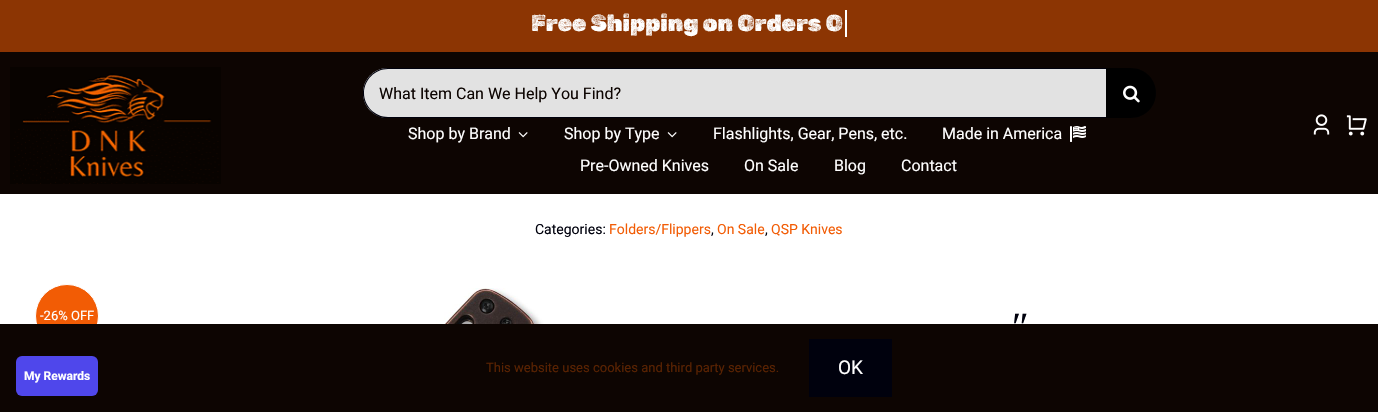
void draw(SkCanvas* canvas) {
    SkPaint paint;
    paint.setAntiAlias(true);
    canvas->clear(0xFFFFFFFF);
    paint.setColor(0xFF8C3503);
    canvas->drawRect(SkRect::MakeXYWH(0, 0, 1378, 52), paint);
    SkFont font1(fontMgr->matchFamilyStyle("Rubik Dirt", SkFontStyle::Normal()), 23);
    font1.setSubpixel(true);
    paint.setColor(0xFFFFFFFF);
    canvas->drawString("Free Shipping on Orders O", 531, 31, font1, paint);
    canvas->drawRect(SkRect::MakeXYWH(845, 10, 2, 27), paint);
    paint.setColor(0xFF0D0502);
    canvas->drawRect(SkRect::MakeXYWH(0, 52, 1378, 142), paint);
    canvas->drawImageRect(SkImages::DeferredFromEncodedData(SkData::MakeFromFileName("img1.png")), SkRect::MakeXYWH(10, 67, 211, 117), SkSamplingOptions());
    paint.setColor(0xFFE2E2E2);
    canvas->drawPath(SkPathBuilder().moveTo(388, 68).lineTo(1106, 68).lineTo(1106, 118).lineTo(388, 118).cubicTo(374, 118, 363, 107, 363, 93).cubicTo(363, 79, 374, 68, 388, 68).close().detach(), paint);
    paint.setColor(0xFF00010D);
    canvas->drawPath(SkPathBuilder().moveTo(388, 68).cubicTo(367, 68, 355, 93, 369, 109).cubicTo(373, 114, 378, 117, 384, 118).lineTo(1106, 118).lineTo(1106, 117).lineTo(388, 117).cubicTo(375, 117, 364, 106, 364, 93).cubicTo(364, 80, 375, 69, 388, 69).lineTo(1106, 69).lineTo(1106, 68).close().detach(), paint);
    SkFont font2(fontMgr->matchFamilyStyle("Roboto", SkFontStyle::Normal()), 16);
    font2.setSubpixel(true);
    paint.setColor(0xFF0D0502);
    canvas->drawString("What Item Can We Help You Find?", 379, 99, font2, paint);
    paint.setColor(0xFF000000);
    canvas->drawPath(SkPathBuilder().moveTo(1106, 68).lineTo(1131, 68).cubicTo(1145, 68, 1156, 79, 1156, 93).cubicTo(1156, 107, 1145, 118, 1131, 118).lineTo(1106, 118).close().detach(), paint);
    canvas->drawImageRect(SkImages::DeferredFromEncodedData(SkData::MakeFromFileName("img2.png")), SkRect::MakeXYWH(1123, 85, 17, 18), SkSamplingOptions());
    paint.setColor(0xFFFFFFFF);
    canvas->drawString("Shop by Brand", 408, 139, font2, paint);
    canvas->drawImageRect(SkImages::DeferredFromEncodedData(SkData::MakeFromFileName("img3.png")), SkRect::MakeXYWH(518, 132, 10, 6), SkSamplingOptions());
    canvas->drawString("Shop by Type", 564, 139, font2, paint);
    canvas->drawImageRect(SkImages::DeferredFromEncodedData(SkData::MakeFromFileName("img3.png")), SkRect::MakeXYWH(667, 132, 10, 6), SkSamplingOptions());
    canvas->drawString("Flashlights, Gear, Pens, etc.", 713, 139, font2, paint);
    canvas->drawString("Made in America", 942, 139, font2, paint);
    canvas->drawImageRect(SkImages::DeferredFromEncodedData(SkData::MakeFromFileName("img4.png")), SkRect::MakeXYWH(1070, 126, 16, 16), SkSamplingOptions());
    canvas->drawString("Pre-Owned Knives", 580, 171, font2, paint);
    canvas->drawString("On Sale", 744, 171, font2, paint);
    canvas->drawString("Blog", 834, 171, font2, paint);
    canvas->drawString("Contact", 901, 171, font2, paint);
    canvas->drawImageRect(SkImages::DeferredFromEncodedData(SkData::MakeFromFileName("img5.png")), SkRect::MakeXYWH(1313, 114, 17, 21), SkSamplingOptions());
    canvas->drawImageRect(SkImages::DeferredFromEncodedData(SkData::MakeFromFileName("img6.png")), SkRect::MakeXYWH(1346, 115, 21, 21), SkSamplingOptions());
    SkFont font3(fontMgr->matchFamilyStyle("Roboto", SkFontStyle::Normal()), 14);
    font3.setSubpixel(true);
    paint.setColor(0xFF00010D);
    canvas->drawString("Categories:", 535, 234, font3, paint);
    paint.setColor(0xFFF25C05);
    canvas->drawString("Folders/Flippers", 609, 234, font3, paint);
    paint.setColor(0xFF00010D);
    canvas->drawString(",", 711, 234, font3, paint);
    paint.setColor(0xFFF25C05);
    canvas->drawString("On Sale", 717, 234, font3, paint);
    paint.setColor(0xFF00010D);
    canvas->drawString(",", 765, 234, font3, paint);
    paint.setColor(0xFFF25C05);
    canvas->drawString("QSP Knives", 771, 234, font3, paint);
    canvas->drawCircle(67, 316, 31.5f, paint);
    paint.setStyle(SkPaint::kStroke_Style);
    paint.setStrokeWidth(1);
    paint.setColor(0xFFFFFFFF);
    canvas->drawCircle(67, 316, 31.5f, paint);
    SkFont font4(fontMgr->matchFamilyStyle("Roboto", SkFontStyle::Normal()), 13);
    font4.setSubpixel(true);
    paint.setStyle(SkPaint::kFill_Style);
    canvas->drawString("-26% OFF", 40, 320, font4, paint);
    canvas->drawImageRect(SkImages::DeferredFromEncodedData(SkData::MakeFromFileName("img7.png")), SkRect::MakeXYWH(364, 288, 181, 36), SkSamplingOptions());
    SkFont font5(fontMgr->matchFamilyStyle("Liberation Serif", SkFontStyle::Normal()), 40);
    font5.setSubpixel(true);
    paint.setColor(0xFF00010D);
    canvas->drawString("″", 1012, 340, font5, paint);
    paint.setColor(0xFF0D0502);
    canvas->drawRect(SkRect::MakeXYWH(0, 324, 1378, 88), paint);
    paint.setColor(0xFF592202);
    canvas->drawString("This website uses cookies and third party services.", 486, 372, font4, paint);
    paint.setColor(0xFF00010D);
    canvas->drawRect(SkRect::MakeXYWH(809, 339, 83, 58), paint);
    SkFont font6(fontMgr->matchFamilyStyle("Roboto", SkFontStyle::Normal()), 19);
    font6.setSubpixel(true);
    paint.setColor(0xFFFFFFFF);
    canvas->drawString("OK", 838, 374, font6, paint);
    paint.setColor(0xFF4F47EB);
    canvas->drawRoundRect(SkRect::MakeXYWH(16, 356, 82, 40), 6, 6, paint);
    SkFont font7(fontMgr->matchFamilyStyle("Roboto", SkFontStyle::Bold()), 12);
    font7.setSubpixel(true);
    paint.setColor(0xFFFFFFFF);
    canvas->drawString("My Rewards", 24, 380, font7, paint);
}
